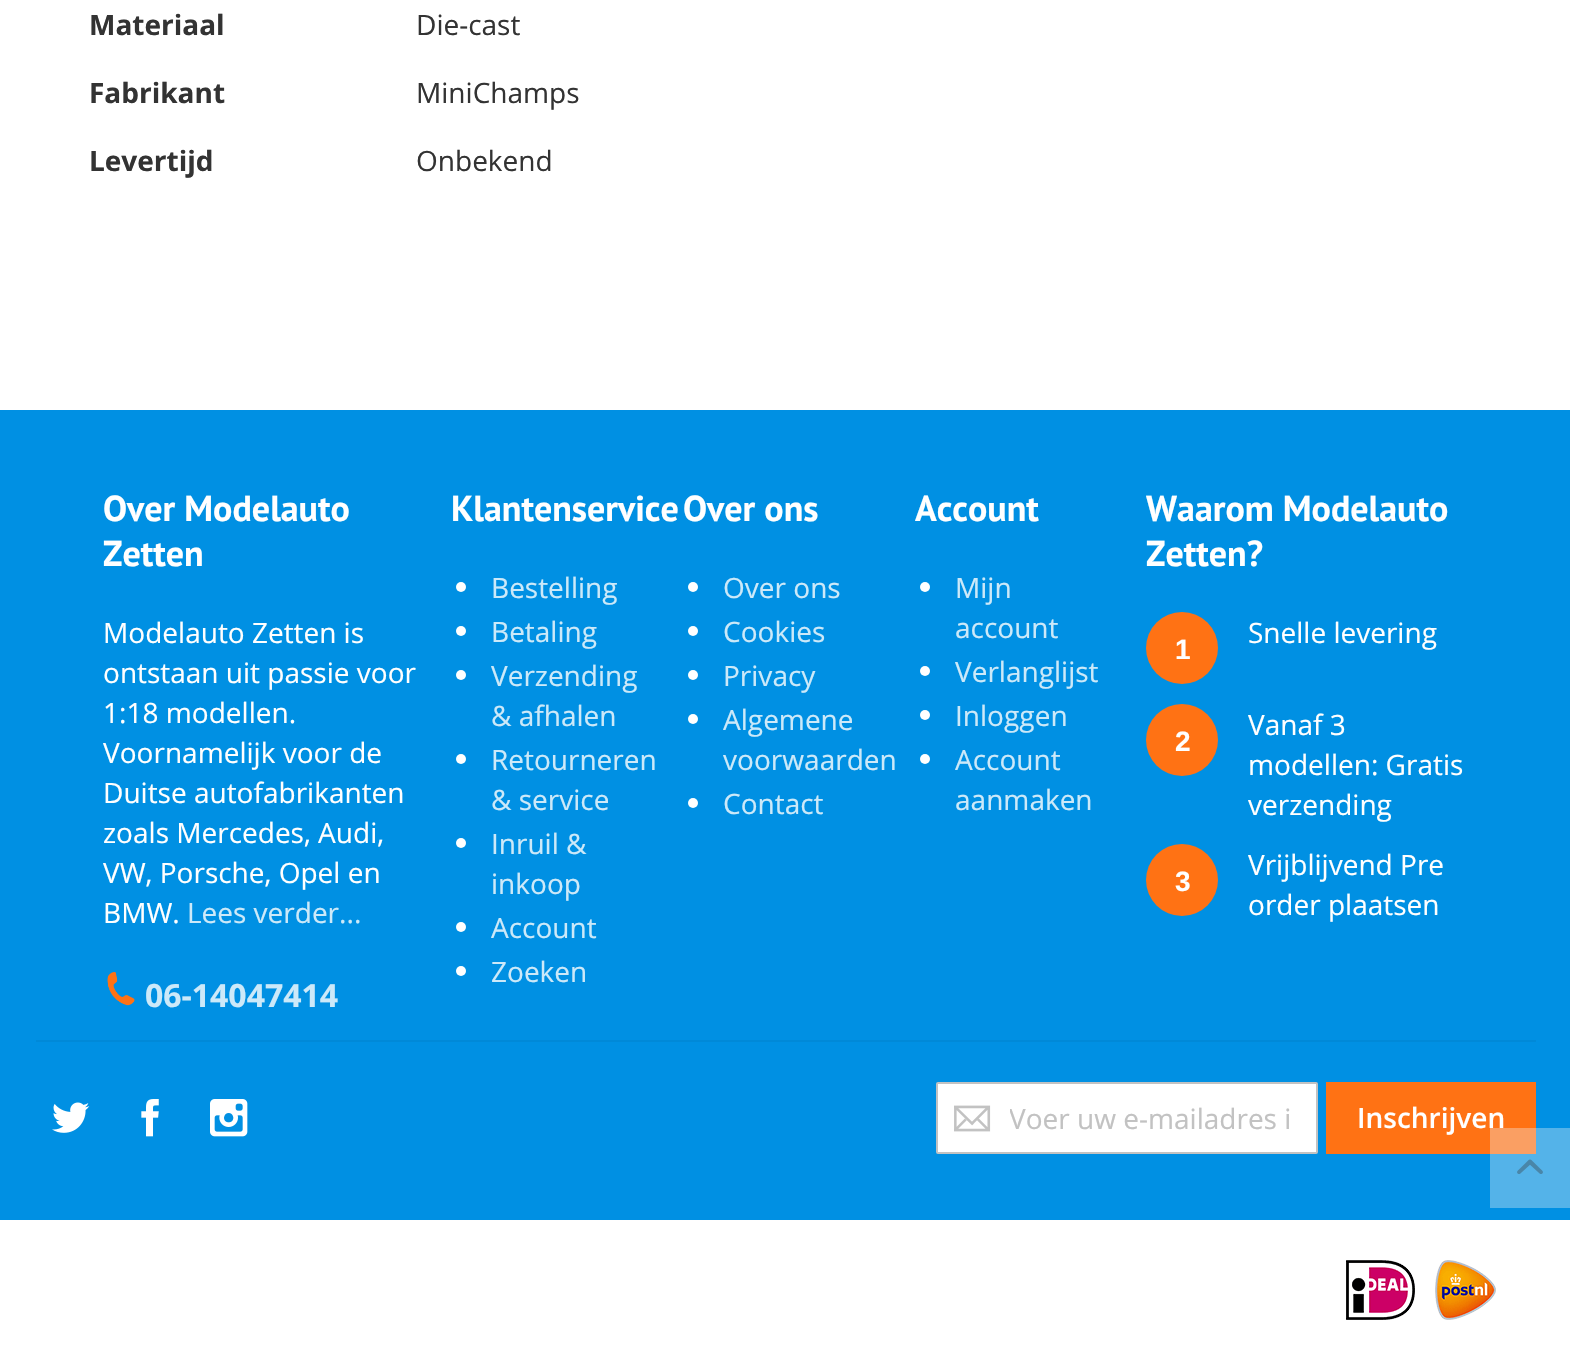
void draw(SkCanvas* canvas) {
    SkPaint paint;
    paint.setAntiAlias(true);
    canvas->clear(0xFFFFFFFF);
    SkFont font1(fontMgr->matchFamilyStyle("Open Sans", SkFontStyle::Bold()), 28);
    font1.setSubpixel(true);
    paint.setColor(0xFF333333);
    canvas->drawString("Materiaal", 89, 35, font1, paint);
    SkFont font2(fontMgr->matchFamilyStyle("Open Sans", SkFontStyle::Normal()), 28);
    font2.setSubpixel(true);
    canvas->drawString("Die-cast", 416, 35, font2, paint);
    canvas->drawString("Fabrikant", 89, 103, font1, paint);
    canvas->drawString("MiniChamps", 416, 103, font2, paint);
    canvas->drawString("Levertijd", 89, 171, font1, paint);
    canvas->drawString("Onbekend", 416, 171, font2, paint);
    paint.setColor(0xFF0090E3);
    canvas->drawRect(SkRect::MakeXYWH(0, 410, 1570, 810), paint);
    paint.setColor(0xFF54B3E9);
    canvas->drawRect(SkRect::MakeXYWH(1490, 1128, 80, 80), paint);
    SkFont font3(fontMgr->matchFamilyStyle("PT Sans", SkFontStyle::Bold()), 36);
    font3.setSubpixel(true);
    paint.setColor(0xFFFFFFFF);
    canvas->drawString("Over Modelauto", 103, 521, font3, paint);
    canvas->drawString("Zetten", 103, 566, font3, paint);
    canvas->drawString("Modelauto Zetten is", 103, 643, font2, paint);
    canvas->drawString("ontstaan uit passie voor", 103, 683, font2, paint);
    canvas->drawString("1:18 modellen.", 103, 723, font2, paint);
    canvas->drawString("Voornamelijk voor de", 103, 763, font2, paint);
    canvas->drawString("Duitse autofabrikanten", 103, 803, font2, paint);
    canvas->drawString("zoals Mercedes, Audi,", 103, 843, font2, paint);
    canvas->drawString("VW, Porsche, Opel en", 103, 883, font2, paint);
    canvas->drawString("BMW.", 103, 923, font2, paint);
    paint.setColor(0xFFCCE9F9);
    canvas->drawString("Lees verder...", 187, 923, font2, paint);
    canvas->drawImageRect(SkImages::DeferredFromEncodedData(SkData::MakeFromFileName("img1.png")), SkRect::MakeXYWH(107, 972, 28, 34), SkSamplingOptions());
    SkFont font4(fontMgr->matchFamilyStyle("Open Sans", SkFontStyle::Bold()), 32);
    font4.setSubpixel(true);
    canvas->drawString("06-14047414", 145, 1007, font4, paint);
    paint.setColor(0xFFFFFFFF);
    canvas->drawString("Klantenservice", 451, 521, font3, paint);
    canvas->drawCircle(461, 587, 5, paint);
    paint.setColor(0xFFCCE9F9);
    canvas->drawString("Bestelling", 491, 598, font2, paint);
    paint.setColor(0xFFFFFFFF);
    canvas->drawCircle(461, 631, 5, paint);
    paint.setColor(0xFFCCE9F9);
    canvas->drawString("Betaling", 491, 642, font2, paint);
    paint.setColor(0xFFFFFFFF);
    canvas->drawCircle(461, 675, 5, paint);
    paint.setColor(0xFFCCE9F9);
    canvas->drawString("Verzending", 491, 686, font2, paint);
    canvas->drawString("& afhalen", 491, 726, font2, paint);
    paint.setColor(0xFFFFFFFF);
    canvas->drawCircle(461, 759, 5, paint);
    paint.setColor(0xFFCCE9F9);
    canvas->drawString("Retourneren", 491, 770, font2, paint);
    canvas->drawString("& service", 491, 810, font2, paint);
    paint.setColor(0xFFFFFFFF);
    canvas->drawCircle(461, 843, 5, paint);
    paint.setColor(0xFFCCE9F9);
    canvas->drawString("Inruil &", 491, 854, font2, paint);
    canvas->drawString("inkoop", 491, 894, font2, paint);
    paint.setColor(0xFFFFFFFF);
    canvas->drawCircle(461, 927, 5, paint);
    paint.setColor(0xFFCCE9F9);
    canvas->drawString("Account", 491, 938, font2, paint);
    paint.setColor(0xFFFFFFFF);
    canvas->drawCircle(461, 971, 5, paint);
    paint.setColor(0xFFCCE9F9);
    canvas->drawString("Zoeken", 491, 982, font2, paint);
    paint.setColor(0xFFFFFFFF);
    canvas->drawString("Over ons", 683, 521, font3, paint);
    canvas->drawCircle(693, 587, 5, paint);
    paint.setColor(0xFFCCE9F9);
    canvas->drawString("Over ons", 723, 598, font2, paint);
    paint.setColor(0xFFFFFFFF);
    canvas->drawCircle(693, 631, 5, paint);
    paint.setColor(0xFFCCE9F9);
    canvas->drawString("Cookies", 723, 642, font2, paint);
    paint.setColor(0xFFFFFFFF);
    canvas->drawCircle(693, 675, 5, paint);
    paint.setColor(0xFFCCE9F9);
    canvas->drawString("Privacy", 723, 686, font2, paint);
    paint.setColor(0xFFFFFFFF);
    canvas->drawCircle(693, 719, 5, paint);
    paint.setColor(0xFFCCE9F9);
    canvas->drawString("Algemene", 723, 730, font2, paint);
    canvas->drawString("voorwaarden", 723, 770, font2, paint);
    paint.setColor(0xFFFFFFFF);
    canvas->drawCircle(693, 803, 5, paint);
    paint.setColor(0xFFCCE9F9);
    canvas->drawString("Contact", 723, 814, font2, paint);
    paint.setColor(0xFFFFFFFF);
    canvas->drawString("Account", 915, 521, font3, paint);
    canvas->drawCircle(925, 587, 5, paint);
    paint.setColor(0xFFCCE9F9);
    canvas->drawString("Mijn", 955, 598, font2, paint);
    canvas->drawString("account", 955, 638, font2, paint);
    paint.setColor(0xFFFFFFFF);
    canvas->drawCircle(925, 671, 5, paint);
    paint.setColor(0xFFCCE9F9);
    canvas->drawString("Verlanglijst", 955, 682, font2, paint);
    paint.setColor(0xFFFFFFFF);
    canvas->drawCircle(925, 715, 5, paint);
    paint.setColor(0xFFCCE9F9);
    canvas->drawString("Inloggen", 955, 726, font2, paint);
    paint.setColor(0xFFFFFFFF);
    canvas->drawCircle(925, 759, 5, paint);
    paint.setColor(0xFFCCE9F9);
    canvas->drawString("Account", 955, 770, font2, paint);
    canvas->drawString("aanmaken", 955, 810, font2, paint);
    paint.setColor(0xFFFFFFFF);
    canvas->drawString("Waarom Modelauto", 1146, 521, font3, paint);
    canvas->drawString("Zetten?", 1146, 566, font3, paint);
    paint.setColor(0xFFFF7214);
    canvas->drawCircle(1182, 648, 36, paint);
    SkFont font5(fontMgr->matchFamilyStyle("Liberation Sans", SkFontStyle::Bold()), 28);
    font5.setSubpixel(true);
    paint.setColor(0xFFFFFFFF);
    canvas->drawString("1", 1175, 659, font5, paint);
    canvas->drawString("Snelle levering", 1248, 643, font2, paint);
    paint.setColor(0xFFFF7214);
    canvas->drawCircle(1182, 740, 36, paint);
    paint.setColor(0xFFFFFFFF);
    canvas->drawString("2", 1175, 751, font5, paint);
    canvas->drawString("Vanaf 3", 1248, 735, font2, paint);
    canvas->drawString("modellen: Gratis", 1248, 775, font2, paint);
    canvas->drawString("verzending", 1248, 815, font2, paint);
    paint.setColor(0xFFFF7214);
    canvas->drawCircle(1182, 880, 36, paint);
    paint.setColor(0xFFFFFFFF);
    canvas->drawString("3", 1175, 891, font5, paint);
    canvas->drawString("Vrijblijvend Pre", 1248, 875, font2, paint);
    canvas->drawString("order plaatsen", 1248, 915, font2, paint);
    paint.setColor(0xFF0089D8);
    canvas->drawRect(SkRect::MakeXYWH(36, 1040, 1500, 2), paint);
    canvas->drawImageRect(SkImages::DeferredFromEncodedData(SkData::MakeFromFileName("img2.png")), SkRect::MakeXYWH(52, 1102, 38, 31), SkSamplingOptions());
    canvas->drawImageRect(SkImages::DeferredFromEncodedData(SkData::MakeFromFileName("img3.png")), SkRect::MakeXYWH(141, 1099, 18, 38), SkSamplingOptions());
    canvas->drawImageRect(SkImages::DeferredFromEncodedData(SkData::MakeFromFileName("img4.png")), SkRect::MakeXYWH(210, 1099, 38, 38), SkSamplingOptions());
    paint.setColor(0xFFFFFFFF);
    canvas->drawRoundRect(SkRect::MakeXYWH(937, 1083, 380, 70), 1, 1, paint);
    paint.setStyle(SkPaint::kStroke_Style);
    paint.setStrokeWidth(2);
    paint.setColor(0xFFC2C2C2);
    canvas->drawRoundRect(SkRect::MakeXYWH(937, 1083, 380, 70), 1, 1, paint);
    canvas->drawImageRect(SkImages::DeferredFromEncodedData(SkData::MakeFromFileName("img5.png")), SkRect::MakeXYWH(954, 1105, 37, 27), SkSamplingOptions());
    canvas->save();
    canvas->clipRect(SkRect::MakeXYWH(1010, 1098, 288, 38));
    paint.setStyle(SkPaint::kFill_Style);
    canvas->drawString("Voer uw e-mailadres i", 1009, 1129, font2, paint);
    canvas->restore();
    paint.setColor(0xFFFF7214);
    canvas->drawRect(SkRect::MakeXYWH(1326, 1082, 210, 72), paint);
    paint.setColor(0xFFFA9F63);
    canvas->drawRect(SkRect::MakeXYWH(1490, 1128, 46, 26), paint);
    SkFont font6(fontMgr->matchFamilyStyle("Open Sans", SkFontStyle(600, SkFontStyle::kNormal_Width, SkFontStyle::kUpright_Slant)), 28);
    font6.setSubpixel(true);
    paint.setColor(0xFFFFFFFF);
    canvas->drawString("Inschrijven", 1357, 1128, font6, paint);
    canvas->drawImageRect(SkImages::DeferredFromEncodedData(SkData::MakeFromFileName("img6.png")), SkRect::MakeXYWH(1517, 1159, 26, 15), SkSamplingOptions());
    canvas->drawImageRect(SkImages::DeferredFromEncodedData(SkData::MakeFromFileName("img7.png")), SkRect::MakeXYWH(1346, 1260, 150, 60), SkSamplingOptions());
}
